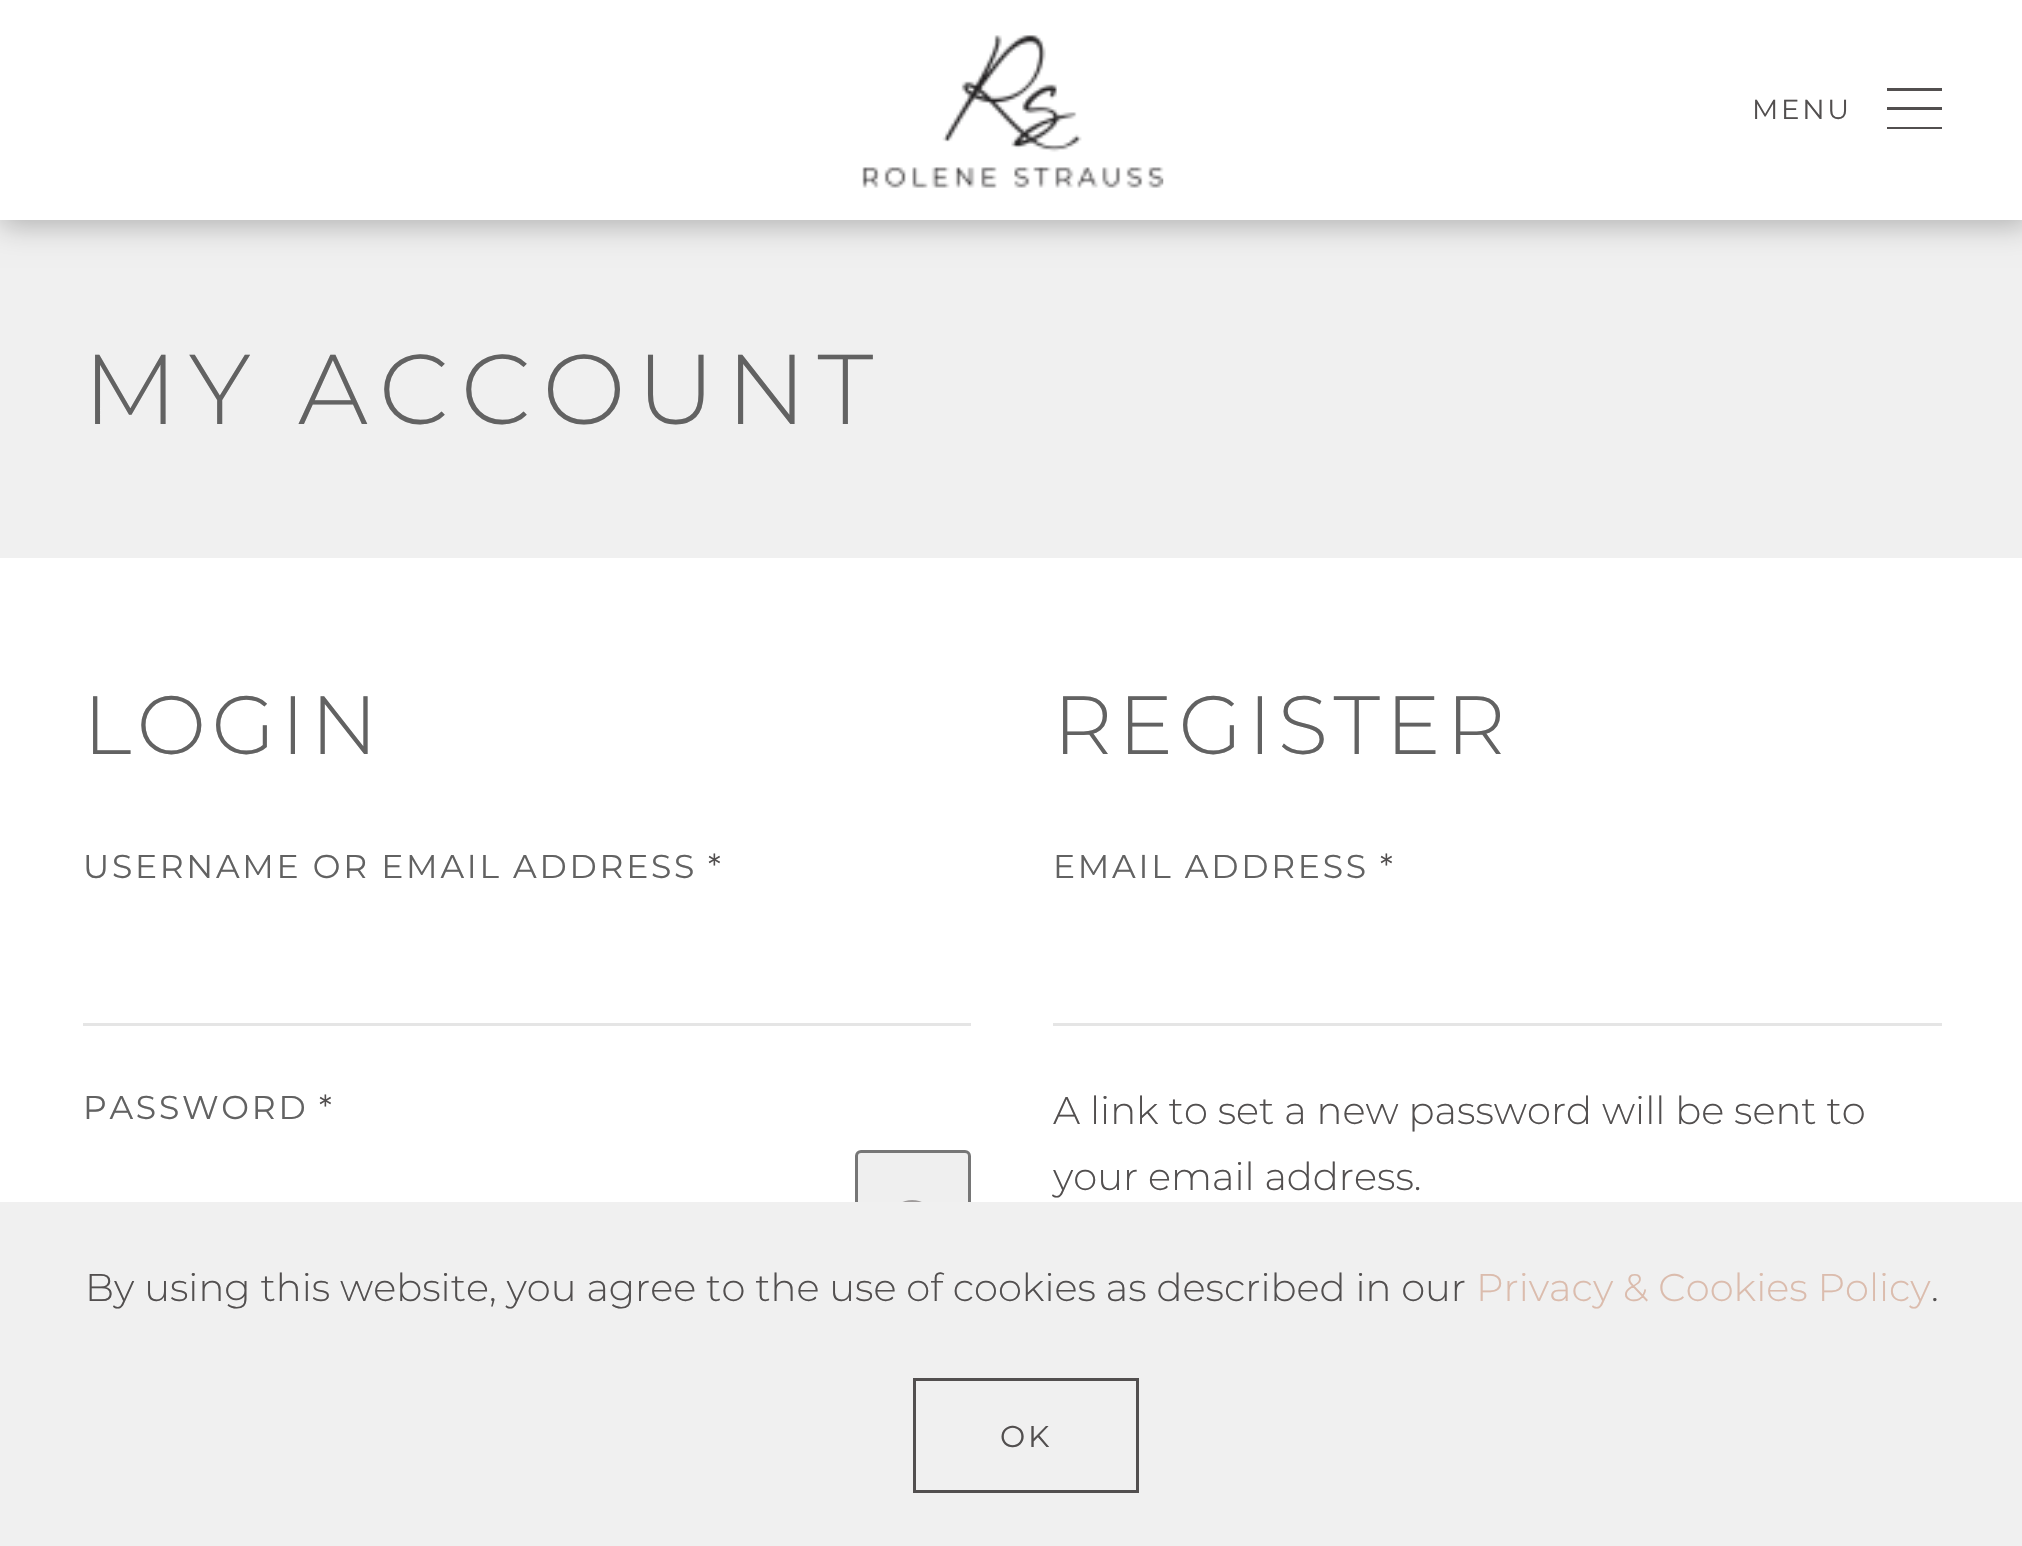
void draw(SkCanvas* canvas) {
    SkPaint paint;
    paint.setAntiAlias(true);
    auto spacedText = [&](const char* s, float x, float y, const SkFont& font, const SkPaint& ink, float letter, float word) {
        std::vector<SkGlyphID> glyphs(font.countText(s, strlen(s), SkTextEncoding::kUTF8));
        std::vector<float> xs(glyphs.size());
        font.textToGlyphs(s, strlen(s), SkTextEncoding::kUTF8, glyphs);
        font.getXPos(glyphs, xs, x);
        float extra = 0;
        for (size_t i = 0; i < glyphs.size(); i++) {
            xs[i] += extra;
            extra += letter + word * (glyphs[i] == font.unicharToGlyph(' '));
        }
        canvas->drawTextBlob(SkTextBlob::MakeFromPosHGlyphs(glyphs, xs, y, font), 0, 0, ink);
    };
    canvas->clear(0xFFFFFFFF);
    paint.setColor(0xFFF0F0F0);
    canvas->drawRect(SkRect::MakeXYWH(0, 220, 2022, 338), paint);
    paint.setColor(0x42000000);
    paint.setMaskFilter(SkMaskFilter::MakeBlur(kNormal_SkBlurStyle, 14));
    canvas->drawRect(SkRect::MakeXYWH(0, 0, 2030, 226), paint);
    paint.setMaskFilter(nullptr);
    paint.setColor(0xFFFFFFFF);
    canvas->drawRect(SkRect::MakeXYWH(0, 0, 2022, 220), paint);
    canvas->drawImageRect(SkImages::DeferredFromEncodedData(SkData::MakeFromFileName("img1.png")), SkRect::MakeXYWH(862, 35, 302, 153), SkSamplingOptions());
    SkFont font1(fontMgr->matchFamilyStyle("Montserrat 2", SkFontStyle(100, SkFontStyle::kNormal_Width, SkFontStyle::kUpright_Slant)), 27.5f);
    font1.setSubpixel(true);
    paint.setColor(0xFF524F4F);
    spacedText("MENU", 1752, 119, font1, paint, 2.75f, 0);
    canvas->drawRect(SkRect::MakeXYWH(1887, 88, 55, 3), paint);
    canvas->drawRect(SkRect::MakeXYWH(1887, 107, 55, 3), paint);
    canvas->drawRect(SkRect::MakeXYWH(1887, 127, 55, 2), paint);
    SkFont font2(fontMgr->matchFamilyStyle("Montserrat", SkFontStyle(100, SkFontStyle::kNormal_Width, SkFontStyle::kUpright_Slant)), 99);
    font2.setSubpixel(true);
    paint.setColor(0xFF626262);
    spacedText("MY ACCOUNT", 83, 424, font2, paint, 11, 0);
    SkFont font3(fontMgr->matchFamilyStyle("Montserrat", SkFontStyle(100, SkFontStyle::kNormal_Width, SkFontStyle::kUpright_Slant)), 82.5f);
    font3.setSubpixel(true);
    spacedText("LOGIN", 83, 754, font3, paint, 5.5f, 0);
    SkFont font4(fontMgr->matchFamilyStyle("Montserrat 2", SkFontStyle(100, SkFontStyle::kNormal_Width, SkFontStyle::kUpright_Slant)), 33);
    font4.setSubpixel(true);
    spacedText("USERNAME OR EMAIL ADDRESS", 83, 878, font4, paint, 2.75f, 0);
    paint.setColor(0xFF524F4F);
    spacedText("*", 708, 878, font4, paint, 2.75f, 0);
    paint.setColor(0xFFE5E5E5);
    canvas->drawRect(SkRect::MakeXYWH(83, 1023, 888, 3), paint);
    paint.setColor(0xFF626262);
    spacedText("PASSWORD", 83, 1119, font4, paint, 2.75f, 0);
    paint.setColor(0xFF524F4F);
    spacedText("*", 319, 1119, font4, paint, 2.75f, 0);
    paint.setColor(0xFFEFEFEF);
    canvas->drawRoundRect(SkRect::MakeXYWH(856.5f, 1151.5f, 113, 112), 4.5f, 4.5f, paint);
    paint.setStyle(SkPaint::kStroke_Style);
    paint.setStrokeWidth(3);
    paint.setColor(0xFF767676);
    canvas->drawRoundRect(SkRect::MakeXYWH(856.5f, 1151.5f, 113, 112), 4.5f, 4.5f, paint);
    canvas->drawImageRect(SkImages::DeferredFromEncodedData(SkData::MakeFromFileName("img2.png")), SkRect::MakeXYWH(902, 1200, 20, 2), SkSamplingOptions());
    paint.setStyle(SkPaint::kFill_Style);
    paint.setColor(0xFF626262);
    spacedText("REGISTER", 1053, 754, font3, paint, 5.5f, 0);
    spacedText("EMAIL ADDRESS", 1053, 878, font4, paint, 2.75f, 0);
    paint.setColor(0xFF524F4F);
    spacedText("*", 1380, 878, font4, paint, 2.75f, 0);
    paint.setColor(0xFFE5E5E5);
    canvas->drawRect(SkRect::MakeXYWH(1053, 1023, 889, 3), paint);
    SkFont font5(fontMgr->matchFamilyStyle("Montserrat", SkFontStyle(100, SkFontStyle::kNormal_Width, SkFontStyle::kUpright_Slant)), 38.5f);
    font5.setSubpixel(true);
    paint.setColor(0xFF524F4F);
    canvas->drawString("A link to set a new password will be sent to", 1053, 1124, font5, paint);
    canvas->drawString("your email address.", 1053, 1190, font5, paint);
    paint.setColor(0xFFF0F0F0);
    canvas->drawRect(SkRect::MakeXYWH(0, 1202, 2022, 344), paint);
    paint.setColor(0xFF524F4F);
    canvas->drawString("By using this website, you agree to the use of cookies as described in our", 85, 1301, font5, paint);
    paint.setColor(0xFFDBBCAD);
    canvas->drawString("Privacy & Cookies Policy", 1476, 1301, font5, paint);
    paint.setColor(0xFF524F4F);
    canvas->drawString(".", 1931, 1301, font5, paint);
    paint.setStyle(SkPaint::kStroke_Style);
    canvas->drawRect(SkRect::MakeXYWH(914.5f, 1379.5f, 223, 112), paint);
    SkFont font6(fontMgr->matchFamilyStyle("Montserrat 2", SkFontStyle(100, SkFontStyle::kNormal_Width, SkFontStyle::kUpright_Slant)), 30);
    font6.setSubpixel(true);
    paint.setStyle(SkPaint::kFill_Style);
    spacedText("OK", 1000, 1447, font6, paint, 2.75f, 0);
}
